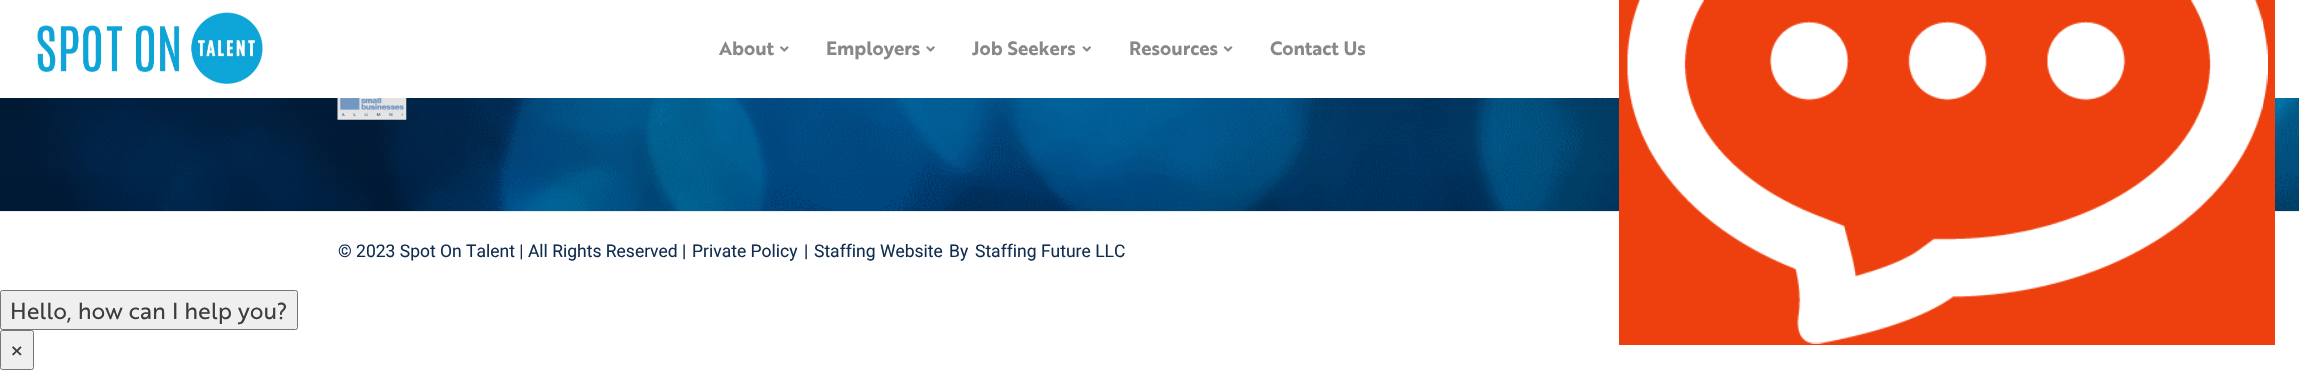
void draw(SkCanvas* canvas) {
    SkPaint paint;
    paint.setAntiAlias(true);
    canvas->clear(0xFFFFFFFF);
    canvas->drawImageRect(SkImages::DeferredFromEncodedData(SkData::MakeFromFileName("img6.png")), SkRect::MakeXYWH(0, 98, 2299, 113), SkSamplingOptions());
    canvas->drawImageRect(SkImages::DeferredFromEncodedData(SkData::MakeFromFileName("img7.png")), SkRect::MakeXYWH(337, 98, 70, 22), SkSamplingOptions());
    paint.setColor(0x0D0F0F0F);
    paint.setMaskFilter(SkMaskFilter::MakeBlur(kNormal_SkBlurStyle, 25));
    canvas->drawRect(SkRect::MakeXYWH(0, -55, 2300, 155), paint);
    paint.setMaskFilter(nullptr);
    paint.setColor(0xFFFFFFFF);
    canvas->drawRect(SkRect::MakeXYWH(0, 0, 2299, 98), paint);
    canvas->drawImageRect(SkImages::DeferredFromEncodedData(SkData::MakeFromFileName("img1.png")), SkRect::MakeXYWH(37, 12, 226, 72), SkSamplingOptions());
    SkFont font1(fontMgr->matchFamilyStyle("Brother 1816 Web", SkFontStyle::Bold()), 18.75f);
    font1.setSubpixel(true);
    paint.setColor(0xFF888888);
    canvas->drawString("About", 719, 55, font1, paint);
    canvas->drawImageRect(SkImages::DeferredFromEncodedData(SkData::MakeFromFileName("img2.png")), SkRect::MakeXYWH(780, 46, 9, 6), SkSamplingOptions());
    canvas->drawString("Employers", 826, 55, font1, paint);
    canvas->drawImageRect(SkImages::DeferredFromEncodedData(SkData::MakeFromFileName("img3.png")), SkRect::MakeXYWH(926, 46, 9, 6), SkSamplingOptions());
    canvas->drawString("Job Seekers", 972, 55, font1, paint);
    canvas->drawImageRect(SkImages::DeferredFromEncodedData(SkData::MakeFromFileName("img4.png")), SkRect::MakeXYWH(1082, 46, 9, 6), SkSamplingOptions());
    canvas->drawString("Resources", 1129, 55, font1, paint);
    canvas->drawImageRect(SkImages::DeferredFromEncodedData(SkData::MakeFromFileName("img5.png")), SkRect::MakeXYWH(1223, 46, 10, 6), SkSamplingOptions());
    canvas->drawString("Contact Us", 1270, 55, font1, paint);
    paint.setColor(0xFFEAEAEA);
    canvas->drawRect(SkRect::MakeXYWH(0, 211, 2299, 1), paint);
    SkFont font2(fontMgr->matchFamilyStyle("Roboto", SkFontStyle::Normal()), 17.5f);
    font2.setSubpixel(true);
    paint.setColor(0xFF112E50);
    canvas->drawString("© 2023 Spot On Talent | All Rights Reserved |", 338, 257, font2, paint);
    canvas->drawString("Private Policy", 692, 257, font2, paint);
    canvas->drawString("|", 804, 257, font2, paint);
    canvas->drawString("Staffing Website", 814, 257, font2, paint);
    canvas->drawString("By", 949, 257, font2, paint);
    canvas->drawString("Staffing Future LLC", 975, 257, font2, paint);
    paint.setColor(0xFFEFEFEF);
    canvas->drawRoundRect(SkRect::MakeXYWH(0.5f, 290.5f, 297, 39), 2, 2, paint);
    paint.setStyle(SkPaint::kStroke_Style);
    paint.setStrokeWidth(1);
    paint.setColor(0xFF767676);
    canvas->drawRoundRect(SkRect::MakeXYWH(0.5f, 290.5f, 297, 39), 2, 2, paint);
    SkFont font3(fontMgr->matchFamilyStyle("Brother 1816 Web", SkFontStyle::Normal()), 22.5f);
    font3.setSubpixel(true);
    paint.setStyle(SkPaint::kFill_Style);
    paint.setColor(0xFF3D3D3D);
    canvas->drawString("Hello, how can I help you?", 10, 319, font3, paint);
    paint.setColor(0xFFEFEFEF);
    canvas->drawRoundRect(SkRect::MakeXYWH(0.5f, 330.5f, 33, 39), 2, 2, paint);
    paint.setStyle(SkPaint::kStroke_Style);
    paint.setColor(0xFF767676);
    canvas->drawRoundRect(SkRect::MakeXYWH(0.5f, 330.5f, 33, 39), 2, 2, paint);
    paint.setStyle(SkPaint::kFill_Style);
    paint.setColor(0xFF3D3D3D);
    canvas->drawString("×", 10, 359, font3, paint);
    paint.setColor(0xFFEE400E);
    canvas->drawRect(SkRect::MakeXYWH(1619, 0, 656, 345), paint);
    canvas->drawImageRect(SkImages::DeferredFromEncodedData(SkData::MakeFromFileName("img8.png")), SkRect::MakeXYWH(1627, 0, 641, 344), SkSamplingOptions());
}
